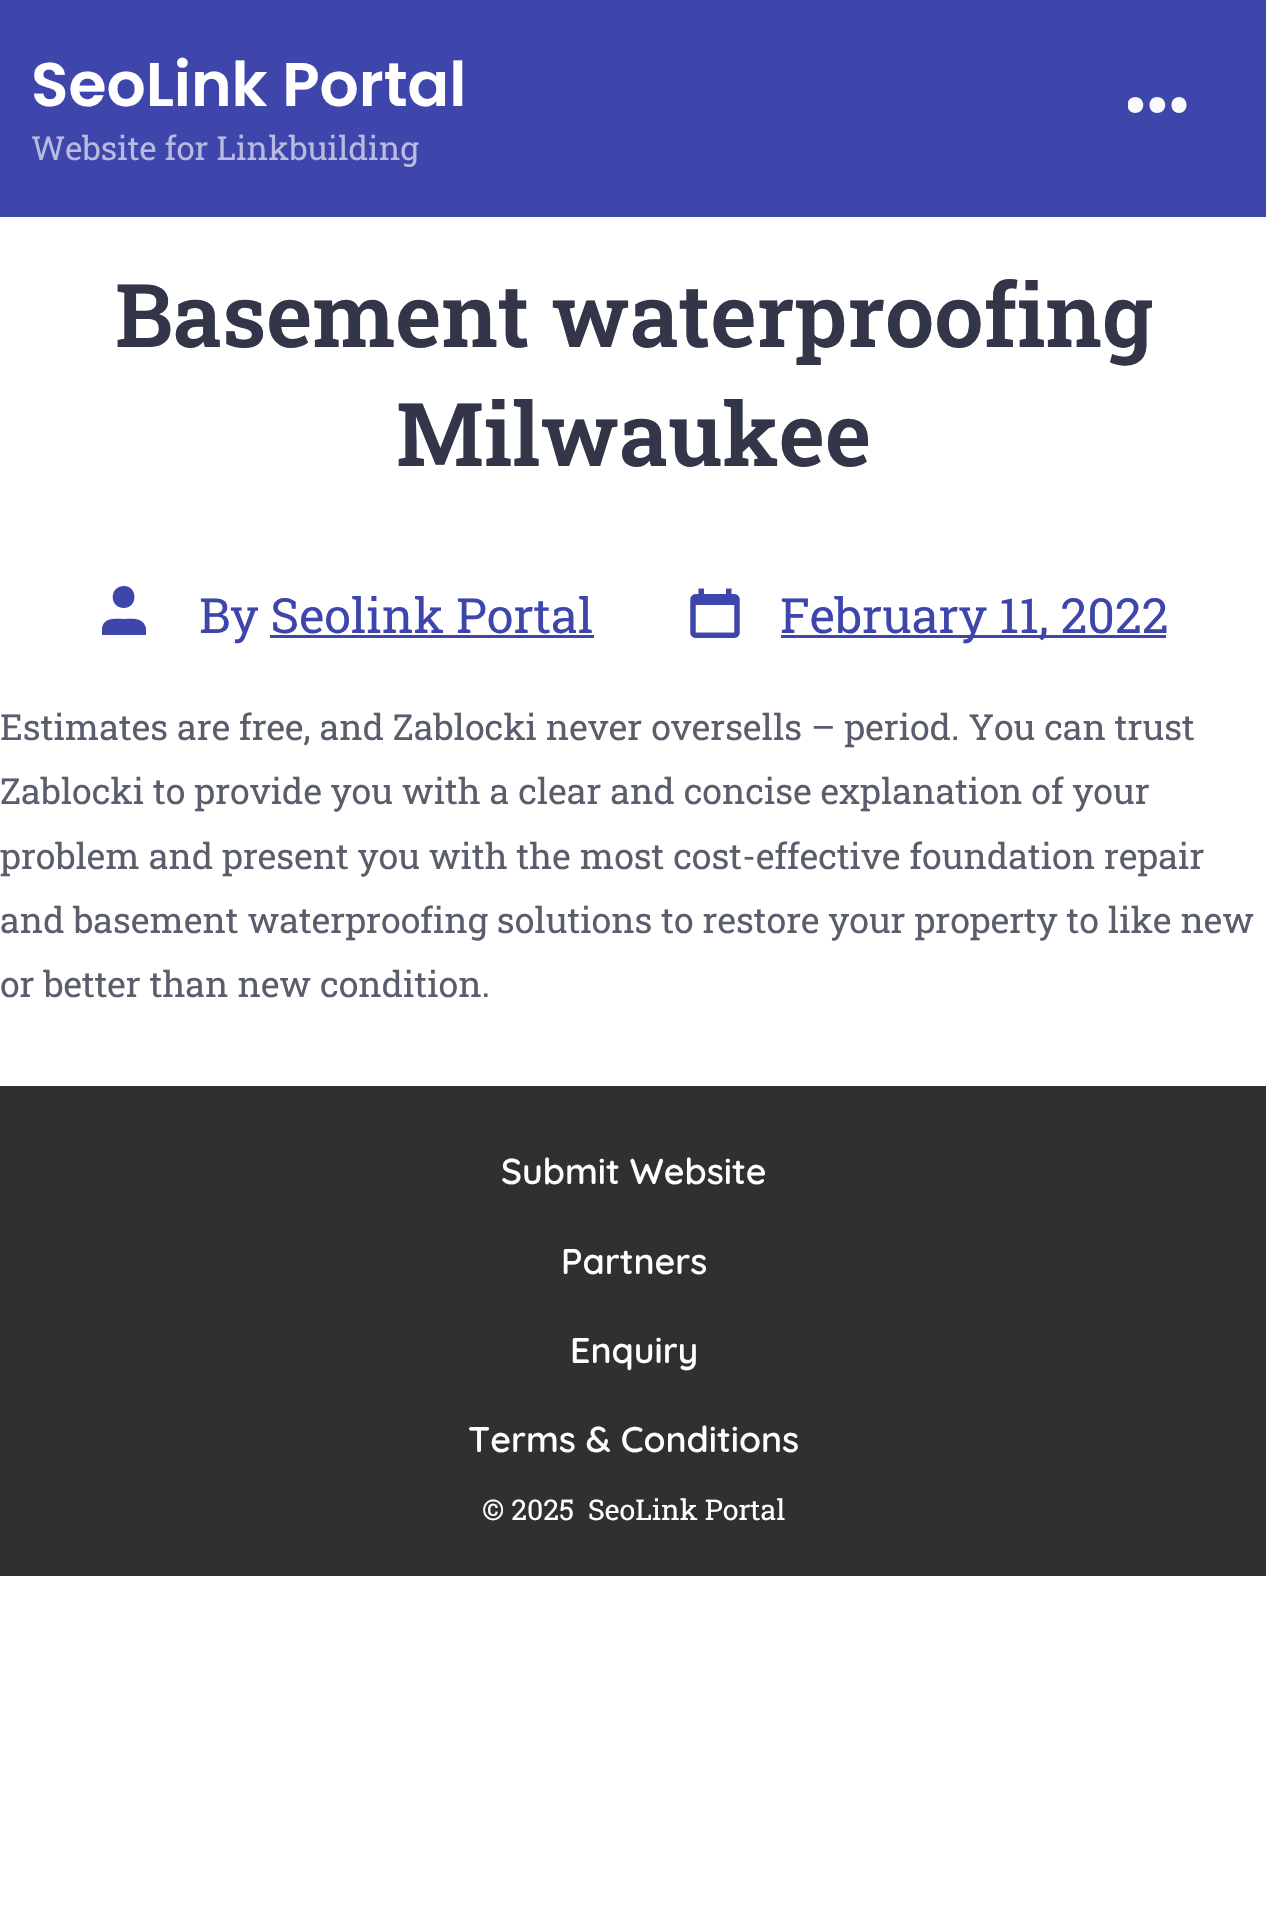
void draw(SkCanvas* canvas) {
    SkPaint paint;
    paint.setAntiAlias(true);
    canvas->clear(0xFFFFFFFF);
    paint.setColor(0xFF3E46AC);
    canvas->drawRect(SkRect::MakeXYWH(0, 0, 1266, 217), paint);
    SkFont font1(fontMgr->matchFamilyStyle("Poppins", SkFontStyle(600, SkFontStyle::kNormal_Width, SkFontStyle::kUpright_Slant)), 61.5f);
    font1.setSubpixel(true);
    paint.setColor(0xFFFFFFFF);
    canvas->drawString("SeoLink Portal", 31, 106, font1, paint);
    SkFont font2(fontMgr->matchFamilyStyle("Roboto Slab", SkFontStyle::Normal()), 33);
    font2.setSubpixel(true);
    paint.setColor(0xFFB8BBDF);
    canvas->drawString("Website for Linkbuilding", 31, 160, font2, paint);
    canvas->save();
    canvas->clipRect(SkRect::MakeXYWH(1128, 74, 60, 61));
    paint.setColor(0xFFFAFAFA);
    canvas->drawPath(SkPathBuilder().moveTo(1135, 113).cubicTo(1125, 113, 1125, 97, 1135, 97).cubicTo(1146, 97, 1146, 113, 1135, 113).close().moveTo(1157, 113).cubicTo(1147, 113, 1147, 97, 1157, 97).cubicTo(1168, 97, 1168, 113, 1157, 113).close().moveTo(1179, 113).cubicTo(1169, 113, 1169, 97, 1179, 97).cubicTo(1189, 97, 1189, 113, 1179, 113).close().detach(), paint);
    canvas->restore();
    SkFont font3(fontMgr->matchFamilyStyle("Roboto Slab", SkFontStyle(600, SkFontStyle::kNormal_Width, SkFontStyle::kUpright_Slant)), 88);
    font3.setSubpixel(true);
    paint.setColor(0xFF323648);
    canvas->drawString("Basement waterproofing", 115, 347, font3, paint);
    canvas->drawString("Milwaukee", 396, 466, font3, paint);
    paint.setColor(0xFF3E46AC);
    canvas->drawPath(SkPathBuilder().moveTo(146, 635).lineTo(102, 635).lineTo(102, 628).cubicTo(104, 617, 116, 619, 124, 619).cubicTo(132, 619, 143, 617, 146, 628).close().moveTo(124, 608).cubicTo(109, 608, 109, 586, 124, 586).cubicTo(138, 586, 138, 608, 124, 608).close().detach(), paint);
    SkFont font4(fontMgr->matchFamilyStyle("Roboto Slab", SkFontStyle::Normal()), 48.5f);
    font4.setSubpixel(true);
    canvas->drawString("By Seolink Portal", 199, 633, font4, paint);
    canvas->drawRect(SkRect::MakeXYWH(270, 635, 324, 3), paint);
    canvas->drawImageRect(SkImages::DeferredFromEncodedData(SkData::MakeFromFileName("img1.png")), SkRect::MakeXYWH(690, 588, 50, 50), SkSamplingOptions());
    canvas->drawRect(SkRect::MakeXYWH(781, 635, 385, 3), paint);
    canvas->drawString("February 11, 2022", 780, 633, font4, paint);
    SkFont font5(fontMgr->matchFamilyStyle("Roboto Slab", SkFontStyle::Normal()), 35.75f);
    font5.setSubpixel(true);
    paint.setColor(0xFF5A5D6C);
    canvas->drawString("Estimates are free, and Zablocki never oversells – period. You can trust", 0, 740, font5, paint);
    canvas->drawString("Zablocki to provide you with a clear and concise explanation of your", 0, 804, font5, paint);
    canvas->drawString("problem and present you with the most cost-effective foundation repair", 0, 869, font5, paint);
    canvas->drawString("and basement waterproofing solutions to restore your property to like new", 0, 933, font5, paint);
    canvas->drawString("or better than new condition.", 0, 997, font5, paint);
    paint.setColor(0xFF303030);
    canvas->drawRect(SkRect::MakeXYWH(0, 1086, 1266, 490), paint);
    SkFont font6(fontMgr->matchFamilyStyle("Quicksand", SkFontStyle(600, SkFontStyle::kNormal_Width, SkFontStyle::kUpright_Slant)), 35.75f);
    font6.setSubpixel(true);
    paint.setColor(0xFFFFFFFF);
    canvas->drawString("Submit Website", 501, 1184, font6, paint);
    canvas->drawString("Partners", 561, 1274, font6, paint);
    canvas->drawString("Enquiry", 570, 1363, font6, paint);
    canvas->drawString("Terms & Conditions", 468, 1452, font6, paint);
    SkFont font7(fontMgr->matchFamilyStyle("Roboto Slab", SkFontStyle::Normal()), 28.5f);
    font7.setSubpixel(true);
    canvas->drawString("© 2025", 482, 1520, font7, paint);
    canvas->drawString("SeoLink Portal", 588, 1520, font7, paint);
}
